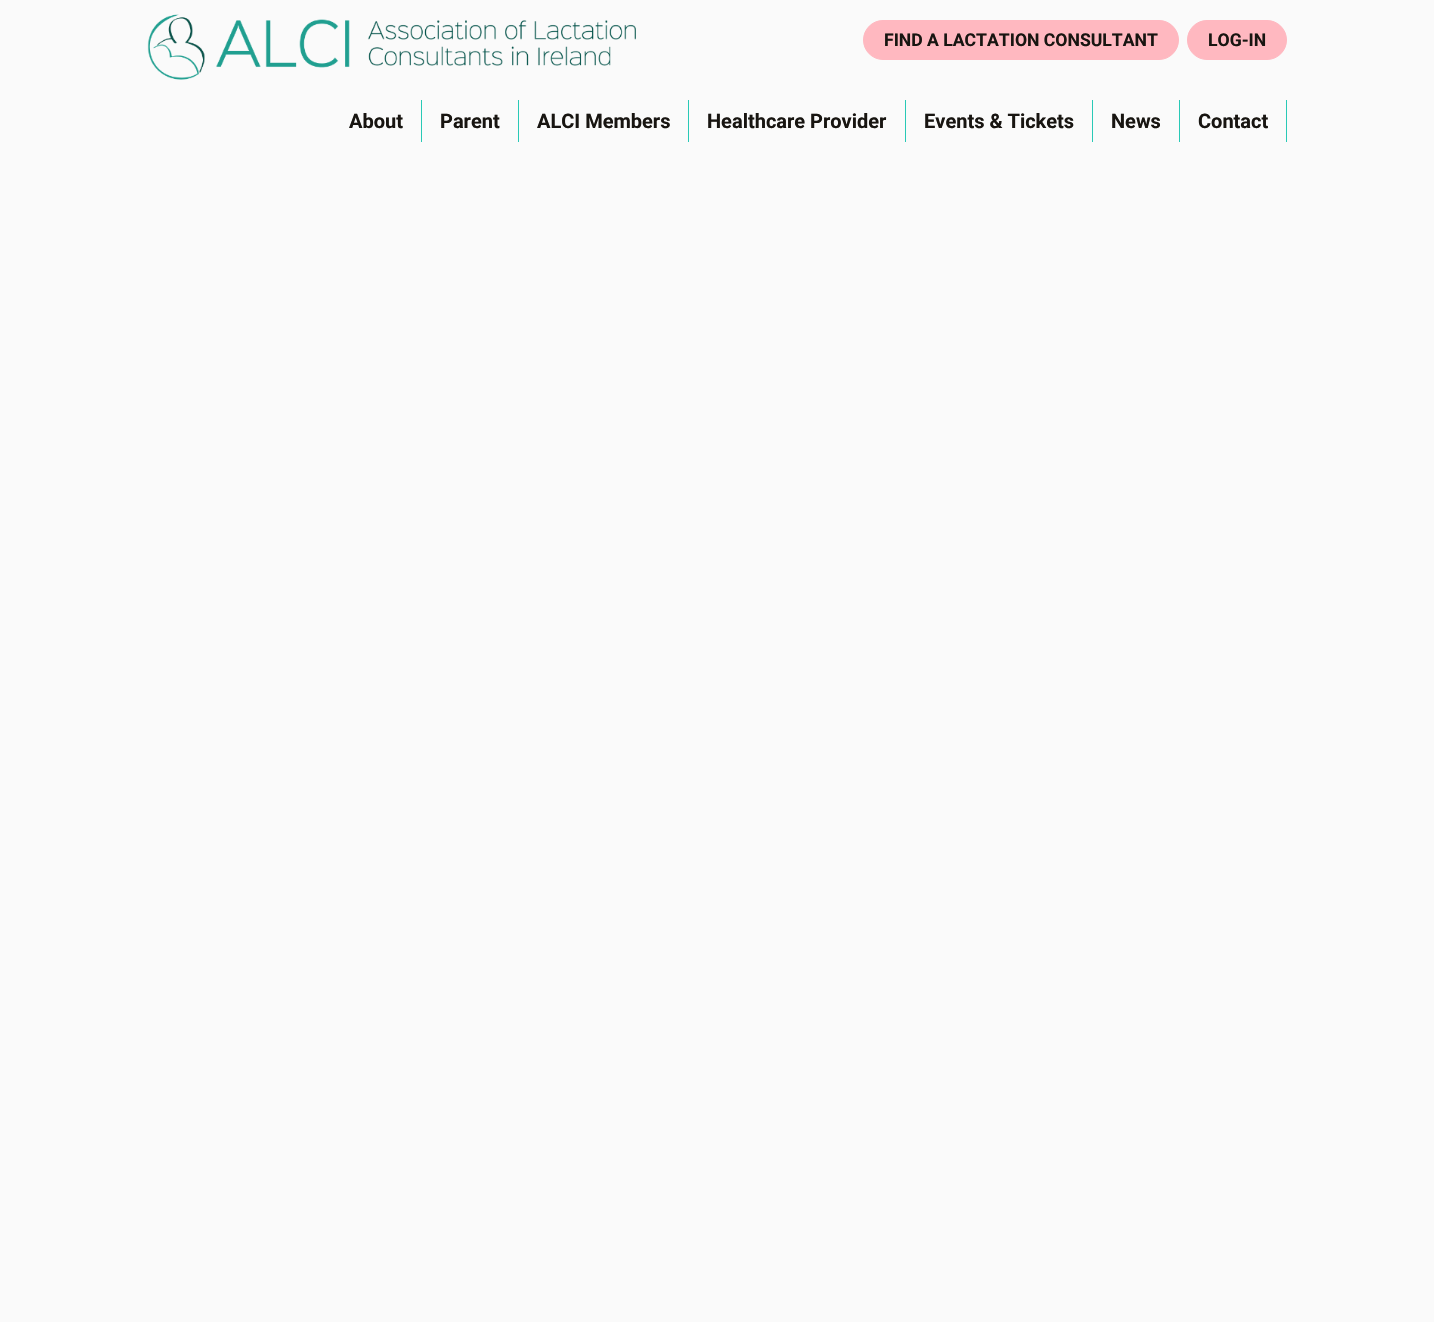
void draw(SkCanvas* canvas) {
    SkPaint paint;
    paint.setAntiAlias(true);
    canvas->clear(0xFFFAFAFA);
    canvas->drawImageRect(SkImages::DeferredFromEncodedData(SkData::MakeFromFileName("img1.png")), SkRect::MakeXYWH(147, 14, 489, 66), SkSamplingOptions());
    paint.setColor(0xFFFFB8C0);
    canvas->drawRoundRect(SkRect::MakeXYWH(863.5f, 20.5f, 315, 39), 19.5f, 19.5f, paint);
    paint.setStyle(SkPaint::kStroke_Style);
    paint.setStrokeWidth(1);
    canvas->drawRoundRect(SkRect::MakeXYWH(863.5f, 20.5f, 315, 39), 19.5f, 19.5f, paint);
    SkFont font1(fontMgr->matchFamilyStyle("Roboto", SkFontStyle::Bold()), 17.6f);
    font1.setSubpixel(true);
    paint.setStyle(SkPaint::kFill_Style);
    paint.setColor(0xFF181511);
    canvas->drawString("FIND A LACTATION CONSULTANT", 884, 46, font1, paint);
    paint.setColor(0xFFFFB8C0);
    canvas->drawRoundRect(SkRect::MakeXYWH(1187.5f, 20.5f, 99, 39), 19.5f, 19.5f, paint);
    paint.setStyle(SkPaint::kStroke_Style);
    canvas->drawRoundRect(SkRect::MakeXYWH(1187.5f, 20.5f, 99, 39), 19.5f, 19.5f, paint);
    paint.setStyle(SkPaint::kFill_Style);
    paint.setColor(0xFF181511);
    canvas->drawString("LOG-IN", 1208, 46, font1, paint);
    paint.setColor(0xFF29C9B6);
    canvas->drawRect(SkRect::MakeXYWH(421, 100, 1, 42), paint);
    SkFont font2(fontMgr->matchFamilyStyle("Roboto", SkFontStyle::Bold()), 20);
    font2.setSubpixel(true);
    paint.setColor(0xFF181511);
    canvas->drawString("About", 349, 128, font2, paint);
    paint.setColor(0xFF29C9B6);
    canvas->drawRect(SkRect::MakeXYWH(518, 100, 1, 42), paint);
    paint.setColor(0xFF181511);
    canvas->drawString("Parent", 440, 128, font2, paint);
    paint.setColor(0xFF29C9B6);
    canvas->drawRect(SkRect::MakeXYWH(688, 100, 1, 42), paint);
    paint.setColor(0xFF181511);
    canvas->drawString("ALCI Members", 537, 128, font2, paint);
    paint.setColor(0xFF29C9B6);
    canvas->drawRect(SkRect::MakeXYWH(905, 100, 1, 42), paint);
    paint.setColor(0xFF181511);
    canvas->drawString("Healthcare Provider", 707, 128, font2, paint);
    paint.setColor(0xFF29C9B6);
    canvas->drawRect(SkRect::MakeXYWH(1092, 100, 1, 42), paint);
    paint.setColor(0xFF181511);
    canvas->drawString("Events & Tickets", 924, 128, font2, paint);
    paint.setColor(0xFF29C9B6);
    canvas->drawRect(SkRect::MakeXYWH(1179, 100, 1, 42), paint);
    paint.setColor(0xFF181511);
    canvas->drawString("News", 1111, 128, font2, paint);
    paint.setColor(0xFF29C9B6);
    canvas->drawRect(SkRect::MakeXYWH(1286, 100, 1, 42), paint);
    paint.setColor(0xFF181511);
    canvas->drawString("Contact", 1198, 128, font2, paint);
}
